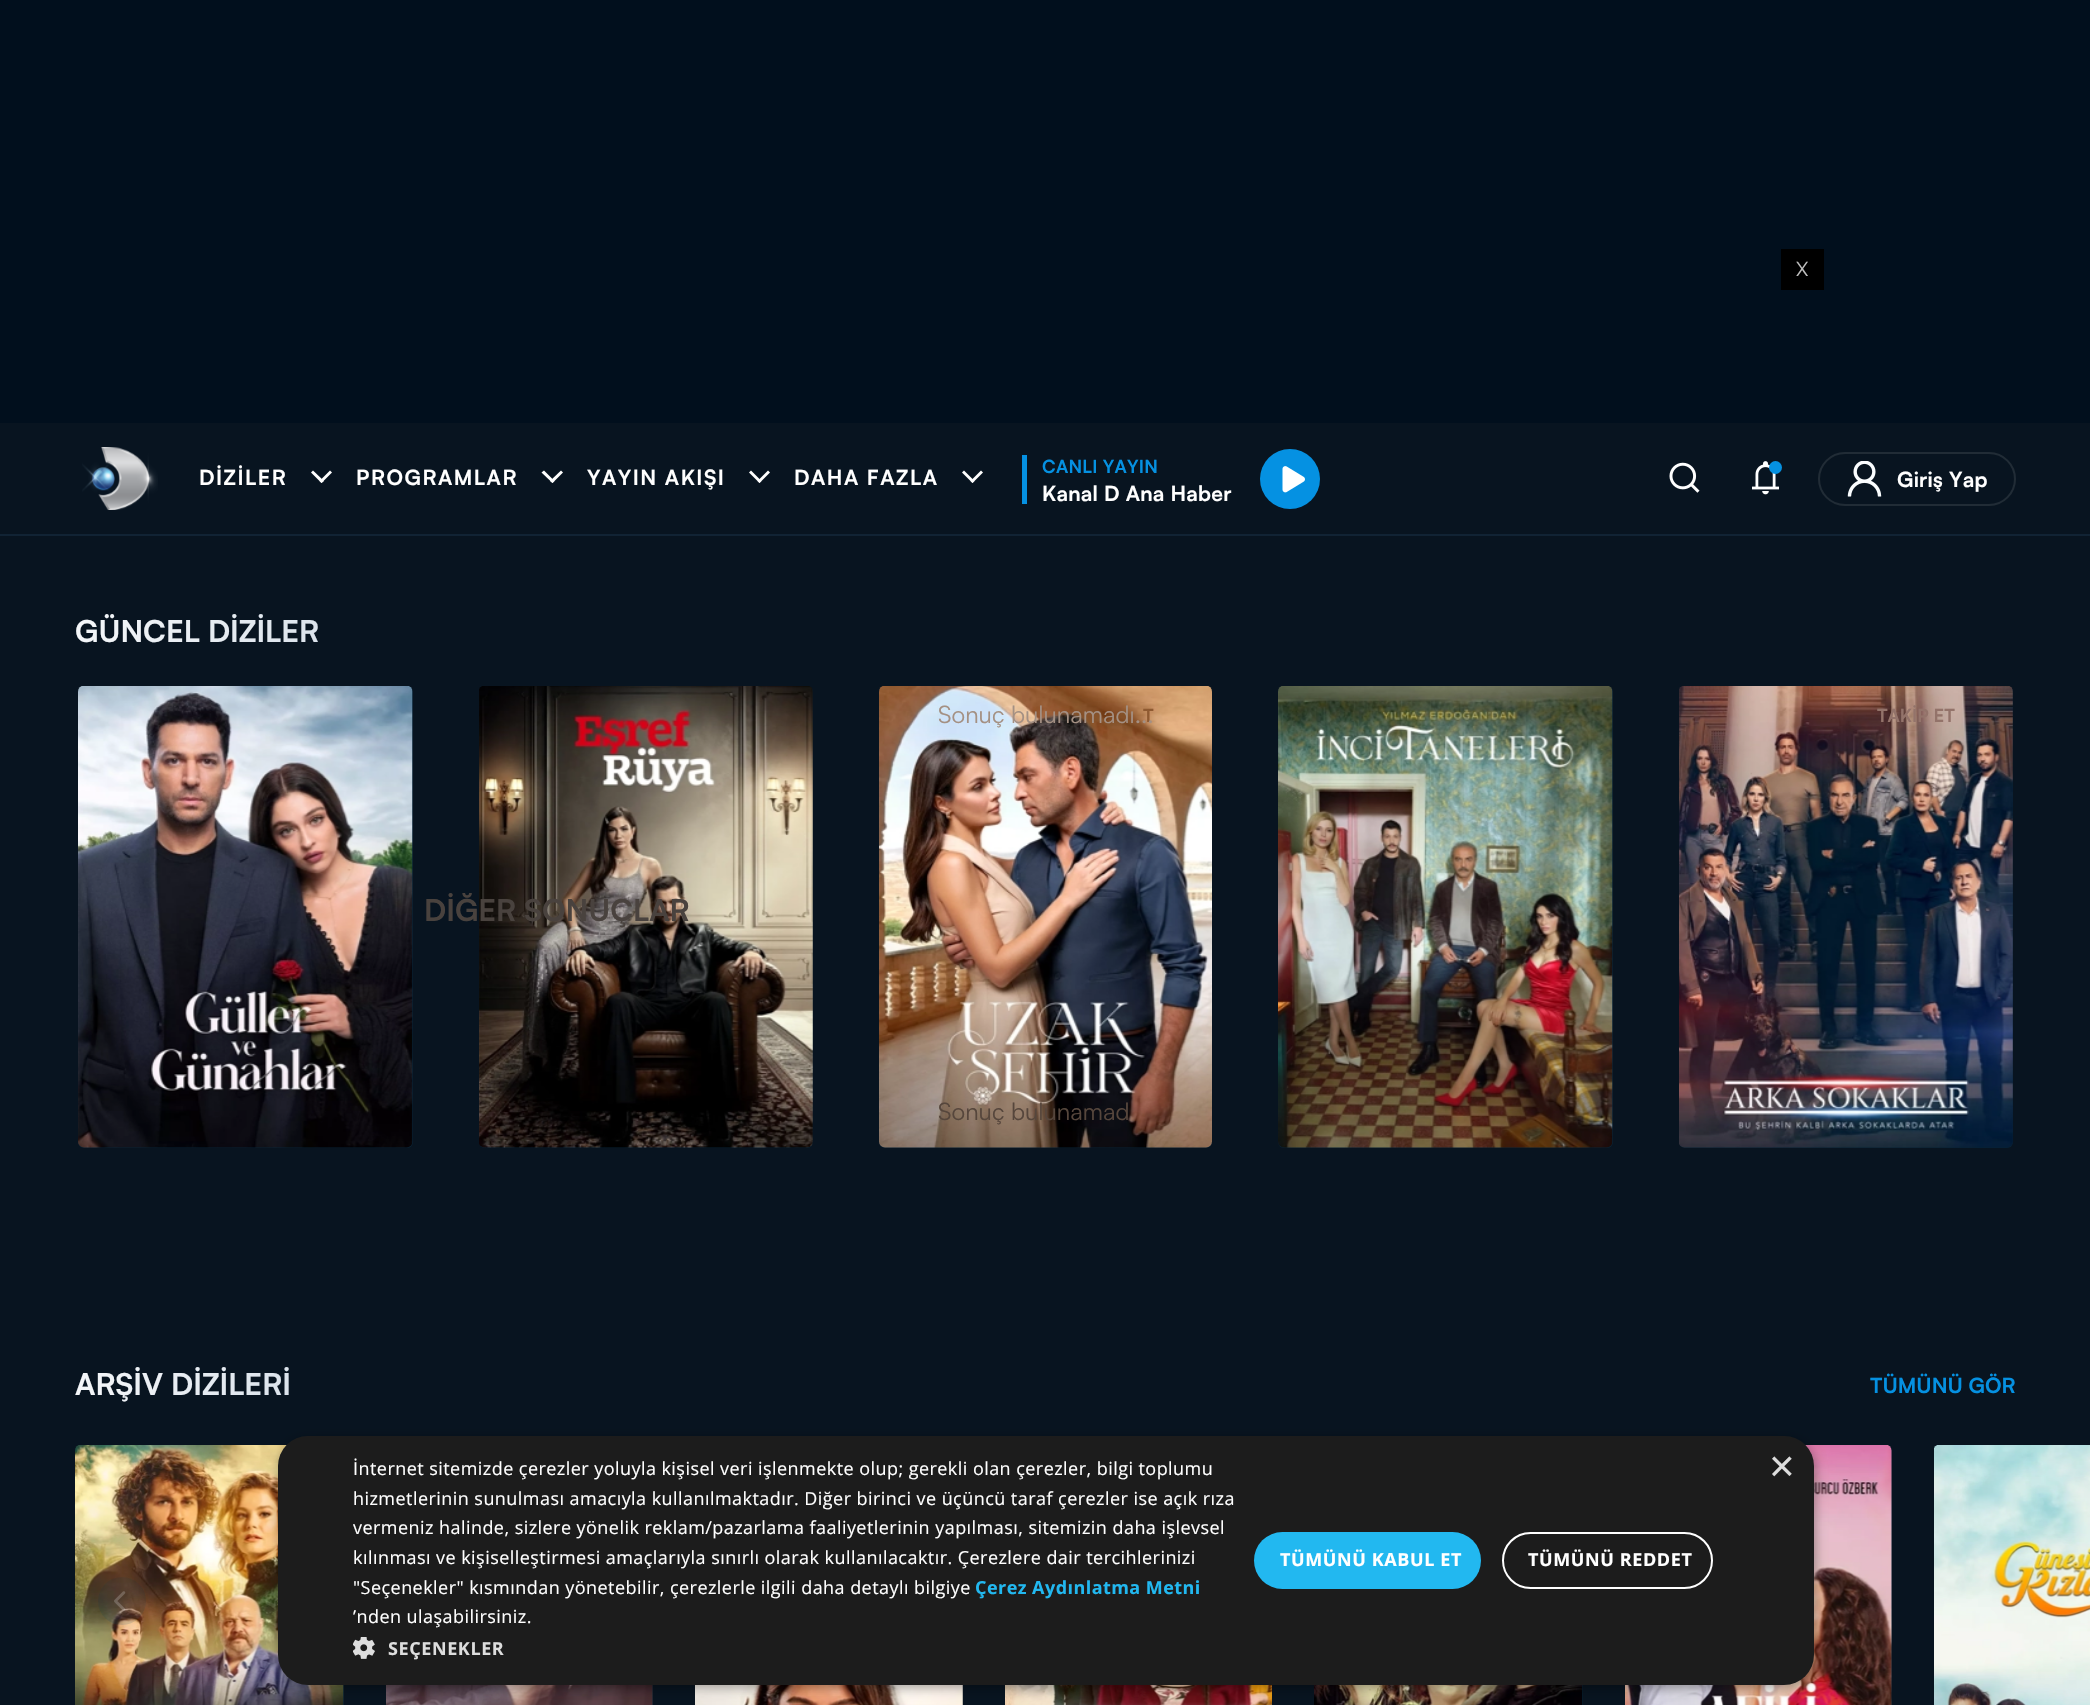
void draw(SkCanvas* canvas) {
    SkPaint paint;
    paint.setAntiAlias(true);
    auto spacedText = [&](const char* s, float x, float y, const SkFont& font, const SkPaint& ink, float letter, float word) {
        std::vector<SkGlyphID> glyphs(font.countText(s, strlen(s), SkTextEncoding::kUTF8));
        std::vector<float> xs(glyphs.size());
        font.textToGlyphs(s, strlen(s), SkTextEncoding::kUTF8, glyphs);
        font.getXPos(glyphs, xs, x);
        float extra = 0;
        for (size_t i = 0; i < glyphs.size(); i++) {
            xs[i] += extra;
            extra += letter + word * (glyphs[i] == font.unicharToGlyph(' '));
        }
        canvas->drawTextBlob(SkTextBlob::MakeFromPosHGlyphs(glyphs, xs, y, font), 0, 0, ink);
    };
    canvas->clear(0xFF081420);
    paint.setColor(0xFF010F1D);
    canvas->drawRect(SkRect::MakeXYWH(0, 0, 2090, 423), paint);
    paint.setColor(0xFF000000);
    canvas->drawRect(SkRect::MakeXYWH(1781, 249, 43, 41), paint);
    SkFont font1(fontMgr->matchFamilyStyle("Satoshi", SkFontStyle::Normal()), 20);
    font1.setSubpixel(true);
    paint.setColor(0xFFBEBEBE);
    canvas->drawString("X", 1796, 276, font1, paint);
    paint.setColor(0xFF112334);
    canvas->drawRect(SkRect::MakeXYWH(0, 534, 2090, 2), paint);
    canvas->drawImageRect(SkImages::DeferredFromEncodedData(SkData::MakeFromFileName("img1.png")), SkRect::MakeXYWH(82, 447, 76, 63), SkSamplingOptions());
    SkFont font2(fontMgr->matchFamilyStyle("Satoshi", SkFontStyle::Bold()), 21);
    font2.setSubpixel(true);
    paint.setColor(0xFFFFFFFF);
    spacedText("DİZİLER", 199, 485, font2, paint, 1.5f, 0);
    canvas->drawPath(SkPathBuilder().moveTo(330, 470.5f).lineTo(332, 472.5f).lineTo(321.5f, 483).lineTo(319.5f, 481).close().detach(), paint);
    canvas->drawPath(SkPathBuilder().moveTo(313, 470.5f).lineTo(324, 481).lineTo(321.5f, 483).lineTo(311, 472.5f).close().detach(), paint);
    spacedText("PROGRAMLAR", 356, 485, font2, paint, 1.5f, 0);
    canvas->drawPath(SkPathBuilder().moveTo(561, 470.5f).lineTo(563, 472.5f).lineTo(552.5f, 483).lineTo(550, 481).close().detach(), paint);
    canvas->drawPath(SkPathBuilder().moveTo(544, 470.5f).lineTo(554.5f, 481).lineTo(552.5f, 483).lineTo(541.5f, 472.5f).close().detach(), paint);
    spacedText("YAYIN AKIŞI", 587, 485, font2, paint, 1.5f, 0);
    canvas->drawPath(SkPathBuilder().moveTo(768, 470.5f).lineTo(770, 472.5f).lineTo(759.5f, 483).lineTo(757.5f, 481).close().detach(), paint);
    canvas->drawPath(SkPathBuilder().moveTo(751, 470.5f).lineTo(761.5f, 481).lineTo(759.5f, 483).lineTo(749, 472.5f).close().detach(), paint);
    spacedText("DAHA FAZLA", 794, 485, font2, paint, 1.5f, 0);
    canvas->drawPath(SkPathBuilder().moveTo(981, 470.5f).lineTo(983, 472.5f).lineTo(972.5f, 483).lineTo(970.5f, 481).close().detach(), paint);
    canvas->drawPath(SkPathBuilder().moveTo(964, 470.5f).lineTo(974.5f, 481).lineTo(972.5f, 483).lineTo(962, 472.5f).close().detach(), paint);
    paint.setColor(0xFF0591E2);
    canvas->drawRect(SkRect::MakeXYWH(1022, 455, 5, 49), paint);
    SkFont font3(fontMgr->matchFamilyStyle("Satoshi", SkFontStyle::Bold()), 18);
    font3.setSubpixel(true);
    spacedText("CANLI YAYIN", 1042, 473, font3, paint, 0.25f, 0);
    paint.setColor(0xFFFFFFFF);
    spacedText("Kanal D Ana Haber", 1042, 501, font2, paint, 0.25f, 0);
    paint.setColor(0xFF0591E2);
    canvas->drawCircle(1290, 479, 30, paint);
    canvas->drawImageRect(SkImages::DeferredFromEncodedData(SkData::MakeFromFileName("img2.png")), SkRect::MakeXYWH(1282, 466, 23, 27), SkSamplingOptions());
    canvas->drawImageRect(SkImages::DeferredFromEncodedData(SkData::MakeFromFileName("img3.png")), SkRect::MakeXYWH(1669, 462, 31, 31), SkSamplingOptions());
    canvas->drawImageRect(SkImages::DeferredFromEncodedData(SkData::MakeFromFileName("img4.png")), SkRect::MakeXYWH(1752, 461, 27, 34), SkSamplingOptions());
    canvas->drawCircle(1775.5f, 467.5f, 6.5f, paint);
    paint.setStyle(SkPaint::kStroke_Style);
    paint.setStrokeWidth(2);
    paint.setColor(0xFF212C36);
    canvas->drawRoundRect(SkRect::MakeXYWH(1819, 453, 196, 52), 26, 26, paint);
    canvas->drawImageRect(SkImages::DeferredFromEncodedData(SkData::MakeFromFileName("img5.png")), SkRect::MakeXYWH(1847, 461, 35, 36), SkSamplingOptions());
    paint.setStyle(SkPaint::kFill_Style);
    paint.setColor(0xFFFFFFFF);
    spacedText("Giriş Yap", 1897, 487, font2, paint, 0.25f, 0);
    paint.setColor(0xFF082133);
    canvas->drawRoundRect(SkRect::MakeXYWH(879, 686, 333, 462), 6, 6, paint);
    canvas->drawImageRect(SkImages::DeferredFromEncodedData(SkData::MakeFromFileName("img8.png")), SkRect::MakeXYWH(879, 686, 333, 462), SkSamplingOptions());
    paint.setColor(0xFF8F5A31);
    canvas->drawString("T", 1143, 722, font3, paint);
    SkFont font4(fontMgr->matchFamilyStyle("Satoshi", SkFontStyle::Normal()), 24);
    font4.setSubpixel(true);
    paint.setColor(0xFFA49083);
    canvas->drawString("Sonuç bulunamadı...", 938, 723, font4, paint);
    paint.setColor(0xFF082133);
    canvas->drawRoundRect(SkRect::MakeXYWH(479, 686, 334, 462), 6, 6, paint);
    canvas->drawImageRect(SkImages::DeferredFromEncodedData(SkData::MakeFromFileName("img7.png")), SkRect::MakeXYWH(479, 686, 334, 462), SkSamplingOptions());
    SkFont font5(fontMgr->matchFamilyStyle("Satoshi", SkFontStyle::Bold()), 30);
    font5.setSubpixel(true);
    paint.setColor(0xFF49423E);
    canvas->drawString("DİĞER SONUÇLAR", 424, 921, font5, paint);
    paint.setColor(0xFF56463C);
    canvas->drawString("Sonuç bulunamad", 938, 1120, font4, paint);
    {
        const SkColor colors[] = {0xFFFFFFFF, 0xFFD5DEE8};
        const float stops[] = {0, 1};
        const SkPoint ends[] = {{-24, 600}, {377, 657}};
        paint.setShader(SkGradientShader::MakeLinear(ends, colors, stops, 2, SkTileMode::kClamp));
        paint.setAlpha(255);
    }
    canvas->drawString("GÜNCEL DİZİLER", 75, 642, font5, paint);
    paint.setShader(nullptr);
    paint.setColor(0xFF082133);
    canvas->drawRoundRect(SkRect::MakeXYWH(78, 686, 335, 462), 6, 6, paint);
    canvas->drawImageRect(SkImages::DeferredFromEncodedData(SkData::MakeFromFileName("img6.png")), SkRect::MakeXYWH(78, 686, 335, 462), SkSamplingOptions());
    canvas->drawRoundRect(SkRect::MakeXYWH(1278, 686, 335, 462), 6, 6, paint);
    canvas->drawImageRect(SkImages::DeferredFromEncodedData(SkData::MakeFromFileName("img9.png")), SkRect::MakeXYWH(1278, 686, 335, 462), SkSamplingOptions());
    canvas->drawRoundRect(SkRect::MakeXYWH(1679, 686, 334, 462), 6, 6, paint);
    canvas->drawImageRect(SkImages::DeferredFromEncodedData(SkData::MakeFromFileName("img10.png")), SkRect::MakeXYWH(1679, 686, 334, 462), SkSamplingOptions());
    paint.setColor(0xFF93736A);
    canvas->drawString("TAKİP ET", 1877, 722, font3, paint);
    {
        const SkColor colors[] = {0xFFFFFFFF, 0xFFD5DEE8};
        const float stops[] = {0, 1};
        const SkPoint ends[] = {{-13, 1357}, {343, 1407}};
        paint.setShader(SkGradientShader::MakeLinear(ends, colors, stops, 2, SkTileMode::kClamp));
        paint.setAlpha(255);
    }
    canvas->drawString("ARŞİV DİZİLERİ", 75, 1395, font5, paint);
    paint.setShader(nullptr);
    paint.setColor(0xFF0591E2);
    canvas->drawString("TÜMÜNÜ GÖR", 1870, 1393, font2, paint);
    paint.setColor(0xFF082133);
    canvas->drawRoundRect(SkRect::MakeXYWH(75, 1445, 269, 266), 6, 6, paint);
    canvas->drawImageRect(SkImages::DeferredFromEncodedData(SkData::MakeFromFileName("img11.png")), SkRect::MakeXYWH(75, 1445, 269, 260), SkSamplingOptions());
    canvas->drawRect(SkRect::MakeXYWH(652, 1685, 1, 20), paint);
    canvas->drawImageRect(SkImages::DeferredFromEncodedData(SkData::MakeFromFileName("img12.png")), SkRect::MakeXYWH(386, 1685, 267, 20), SkSamplingOptions());
    canvas->drawImageRect(SkImages::DeferredFromEncodedData(SkData::MakeFromFileName("img13.png")), SkRect::MakeXYWH(695, 1685, 268, 20), SkSamplingOptions());
    canvas->drawImageRect(SkImages::DeferredFromEncodedData(SkData::MakeFromFileName("img14.png")), SkRect::MakeXYWH(1005, 1685, 267, 20), SkSamplingOptions());
    canvas->drawRect(SkRect::MakeXYWH(1582, 1685, 1, 20), paint);
    canvas->drawImageRect(SkImages::DeferredFromEncodedData(SkData::MakeFromFileName("img15.png")), SkRect::MakeXYWH(1314, 1685, 269, 20), SkSamplingOptions());
    canvas->drawRoundRect(SkRect::MakeXYWH(1625, 1445, 267, 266), 6, 6, paint);
    canvas->drawImageRect(SkImages::DeferredFromEncodedData(SkData::MakeFromFileName("img16.png")), SkRect::MakeXYWH(1625, 1445, 267, 260), SkSamplingOptions());
    canvas->drawImageRect(SkImages::DeferredFromEncodedData(SkData::MakeFromFileName("img17.png")), SkRect::MakeXYWH(1934, 1445, 156, 260), SkSamplingOptions());
    paint.setColor(0x1C032940);
    canvas->drawCircle(122, 1601, 24, paint);
    canvas->drawImageRect(SkImages::DeferredFromEncodedData(SkData::MakeFromFileName("img18.png")), SkRect::MakeXYWH(114, 1591, 12, 20), SkSamplingOptions());
    paint.setColor(0x59000000);
    paint.setMaskFilter(SkMaskFilter::MakeBlur(kNormal_SkBlurStyle, 6));
    canvas->drawRoundRect(SkRect::MakeXYWH(279, 1439, 1536, 249), 30, 30, paint);
    paint.setMaskFilter(nullptr);
    paint.setColor(0xFF1C1C1C);
    canvas->drawRoundRect(SkRect::MakeXYWH(278, 1436, 1536, 249), 30, 30, paint);
    SkFont font6(fontMgr->matchFamilyStyle("Open Sans", SkFontStyle::Normal()), 18);
    font6.setSubpixel(true);
    paint.setColor(0xFFFFFFFF);
    spacedText("İnternet sitemizde çerezler yoluyla kişisel veri işlenmekte olup; gerekli olan çerezler, bilgi toplumu", 353, 1475, font6, paint, 0.45f, 0);
    spacedText("hizmetlerinin sunulması amacıyla kullanılmaktadır. Diğer birinci ve üçüncü taraf çerezler ise açık rıza", 353, 1505, font6, paint, 0.45f, 0);
    spacedText("vermeniz halinde, sizlere yönelik reklam/pazarlama faaliyetlerinin yapılması, sitemizin daha işlevsel", 353, 1534, font6, paint, 0.45f, 0);
    spacedText("kılınması ve kişiselleştirmesi amaçlarıyla sınırlı olarak kullanılacaktır. Çerezlere dair tercihlerinizi", 353, 1564, font6, paint, 0.45f, 0);
    spacedText("\"Seçenekler\" kısmından yönetebilir, çerezlerle ilgili daha detaylı bilgiye", 353, 1594, font6, paint, 0.45f, 0);
    SkFont font7(fontMgr->matchFamilyStyle("Open Sans", SkFontStyle::Bold()), 18);
    font7.setSubpixel(true);
    paint.setColor(0xFF22B8F0);
    spacedText("Çerez Aydınlatma Metni", 975, 1594, font7, paint, 0.45f, 0);
    paint.setColor(0xFFFFFFFF);
    spacedText("’nden ulaşabilirsiniz.", 353, 1623, font6, paint, 0.45f, 0);
    canvas->drawImageRect(SkImages::DeferredFromEncodedData(SkData::MakeFromFileName("img19.png")), SkRect::MakeXYWH(353, 1637, 22, 22), SkSamplingOptions());
    paint.setColor(0xFFDDDDDD);
    spacedText("SEÇENEKLER", 388, 1655, font7, paint, 0.6f, 0);
    paint.setColor(0xFF22B8F0);
    canvas->drawRoundRect(SkRect::MakeXYWH(1254, 1532, 227, 57), 28.5f, 28.5f, paint);
    paint.setColor(0xFFFFFFFF);
    spacedText("TÜMÜNÜ KABUL ET", 1280, 1566, font7, paint, 0.6f, 0);
    paint.setStyle(SkPaint::kStroke_Style);
    canvas->drawRoundRect(SkRect::MakeXYWH(1503, 1533, 209, 55), 27.5f, 27.5f, paint);
    paint.setStyle(SkPaint::kFill_Style);
    spacedText("TÜMÜNÜ REDDET", 1528, 1566, font7, paint, 0.6f, 0);
    SkFont font8(fontMgr->matchFamilyStyle("Liberation Sans", SkFontStyle::Normal()), 44);
    font8.setSubpixel(true);
    paint.setColor(0xFFDDDDDD);
    canvas->drawString("×", 1769, 1481, font8, paint);
}
